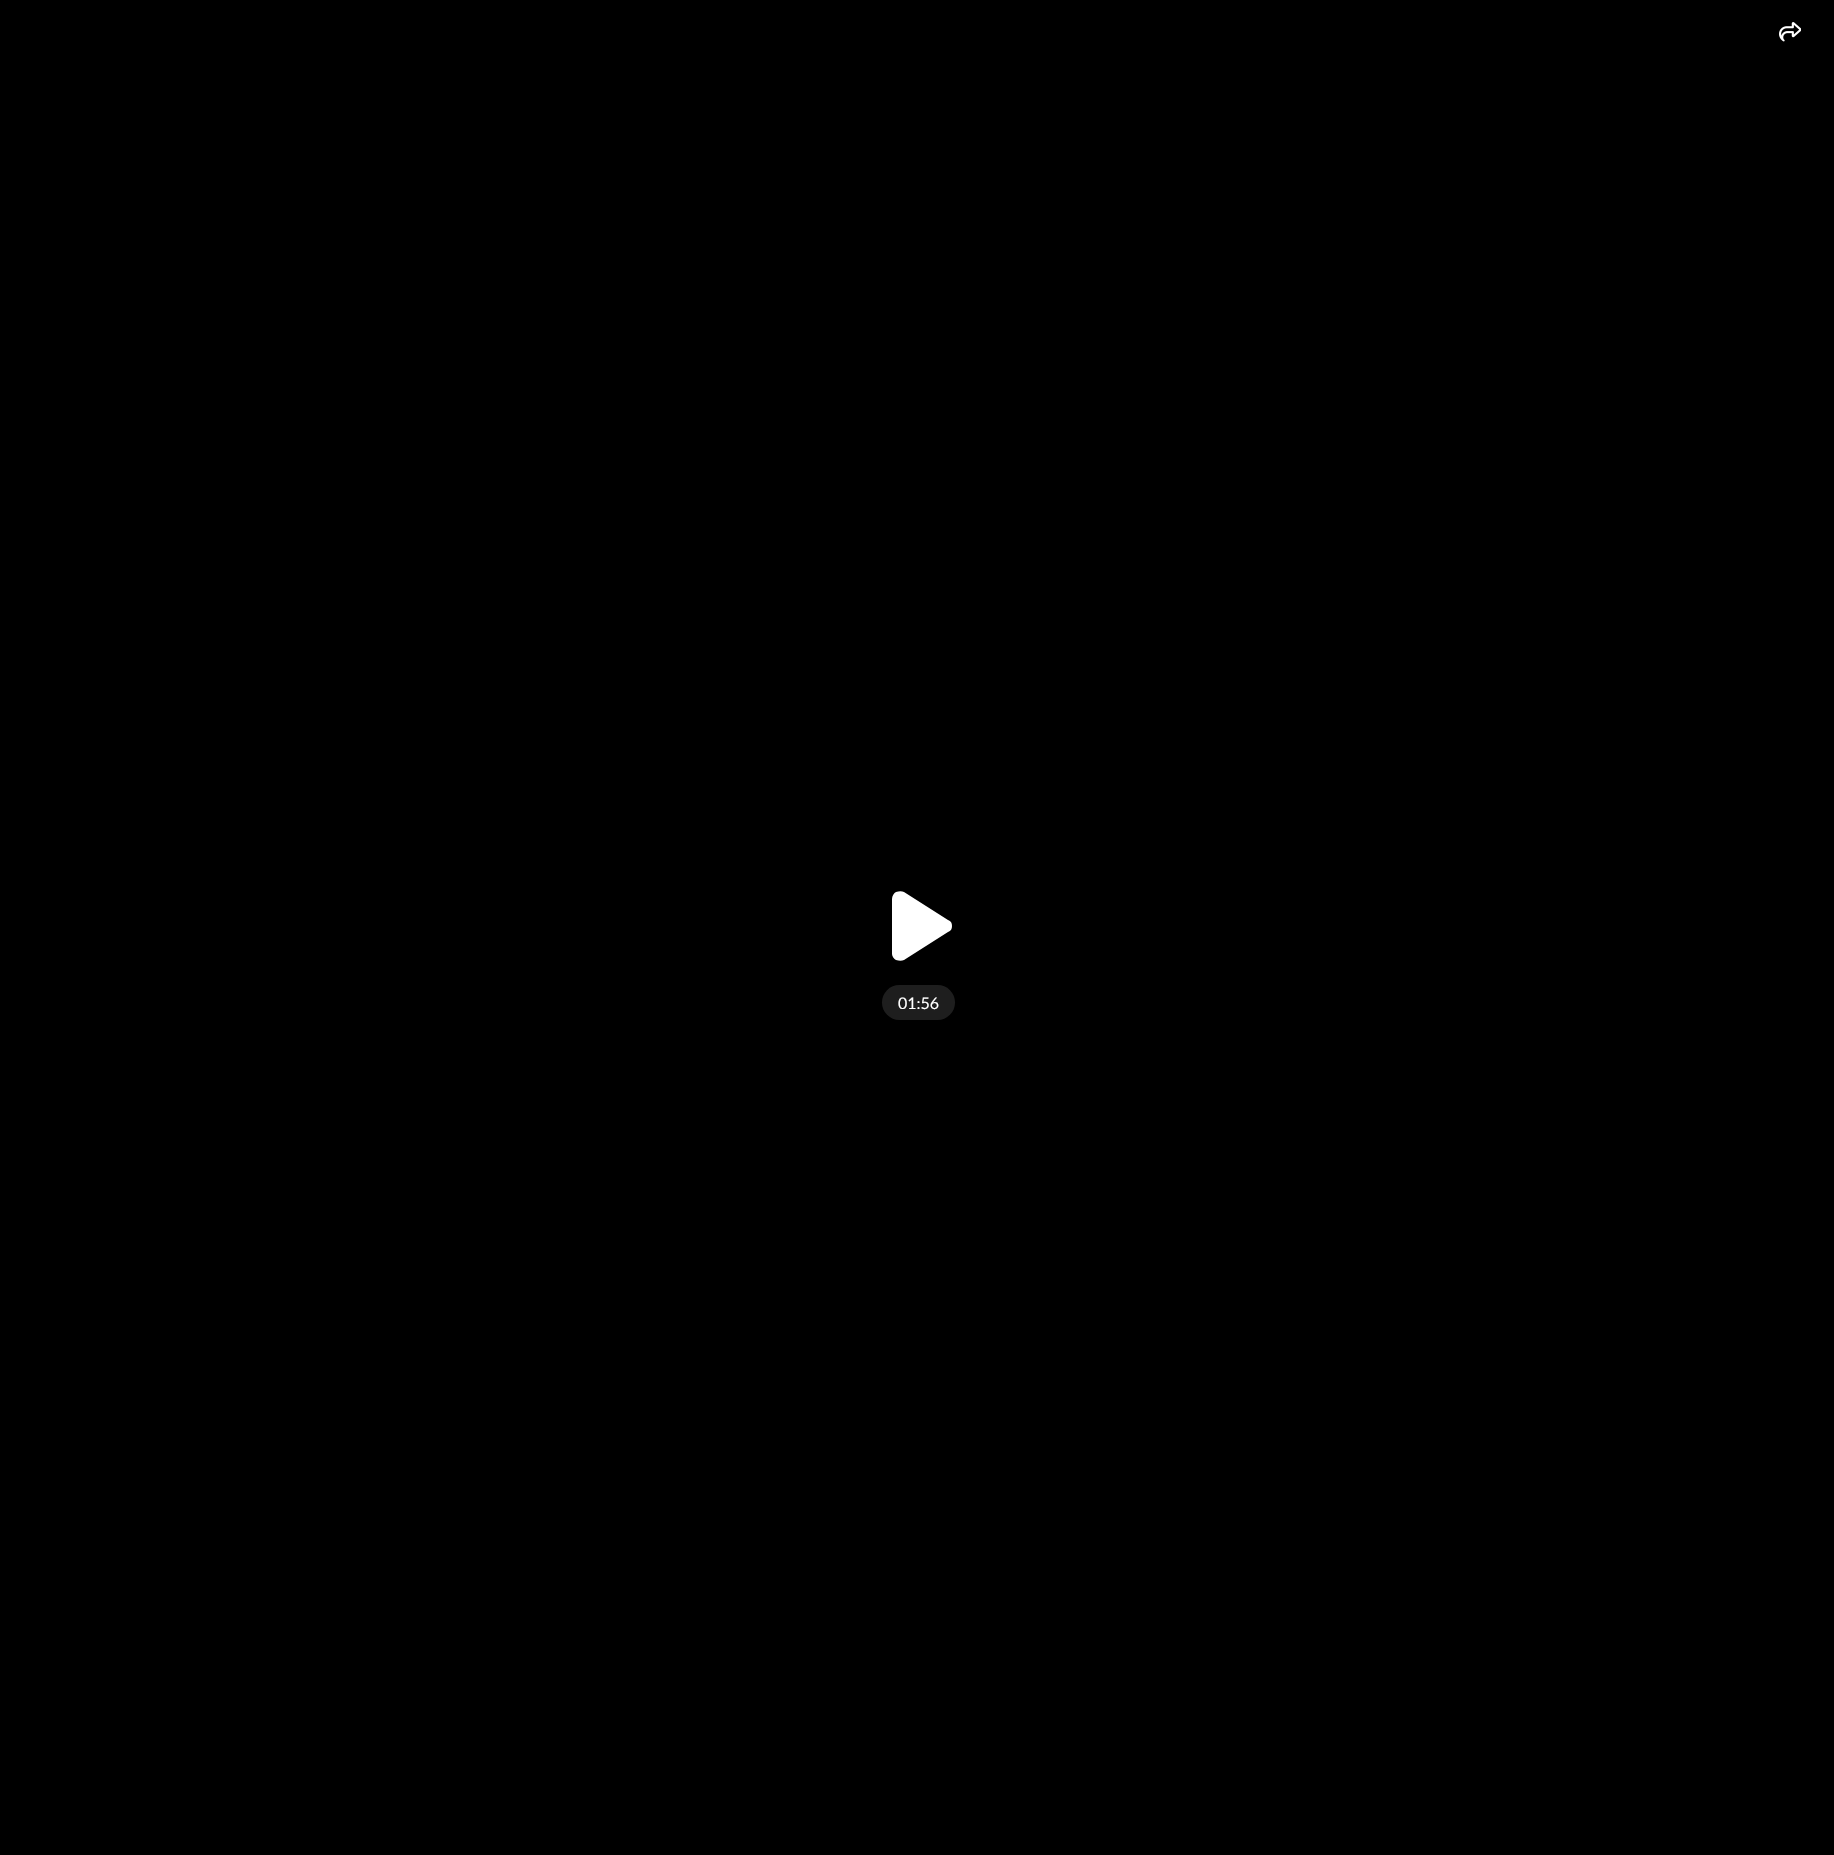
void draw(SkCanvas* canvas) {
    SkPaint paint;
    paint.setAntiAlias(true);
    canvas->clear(0xFF000000);
    canvas->drawImageRect(SkImages::DeferredFromEncodedData(SkData::MakeFromFileName("img1.png")), SkRect::MakeXYWH(1779, 22, 22, 20), SkSamplingOptions());
    paint.setColor(0xFFFFFFFF);
    canvas->drawPath(SkPathBuilder().moveTo(948, 920).cubicTo(951, 921, 952, 923, 952, 926).cubicTo(952, 929, 951, 931, 948, 932).lineTo(904, 960).cubicTo(902, 961, 899, 961, 896, 960).cubicTo(894, 959, 892, 956, 892, 954).lineTo(892, 899).cubicTo(892, 896, 894, 893, 896, 892).cubicTo(899, 891, 902, 891, 904, 892).close().detach(), paint);
    paint.setColor(0xFF1E1E1E);
    canvas->drawRoundRect(SkRect::MakeXYWH(882, 985, 73, 35), 17.5f, 17.5f, paint);
    SkFont font1(fontMgr->matchFamilyStyle("Lato", SkFontStyle::Normal()), 16);
    font1.setSubpixel(true);
    paint.setColor(0xFFFFFFFF);
    canvas->drawString("01:56", 898, 1009, font1, paint);
}
